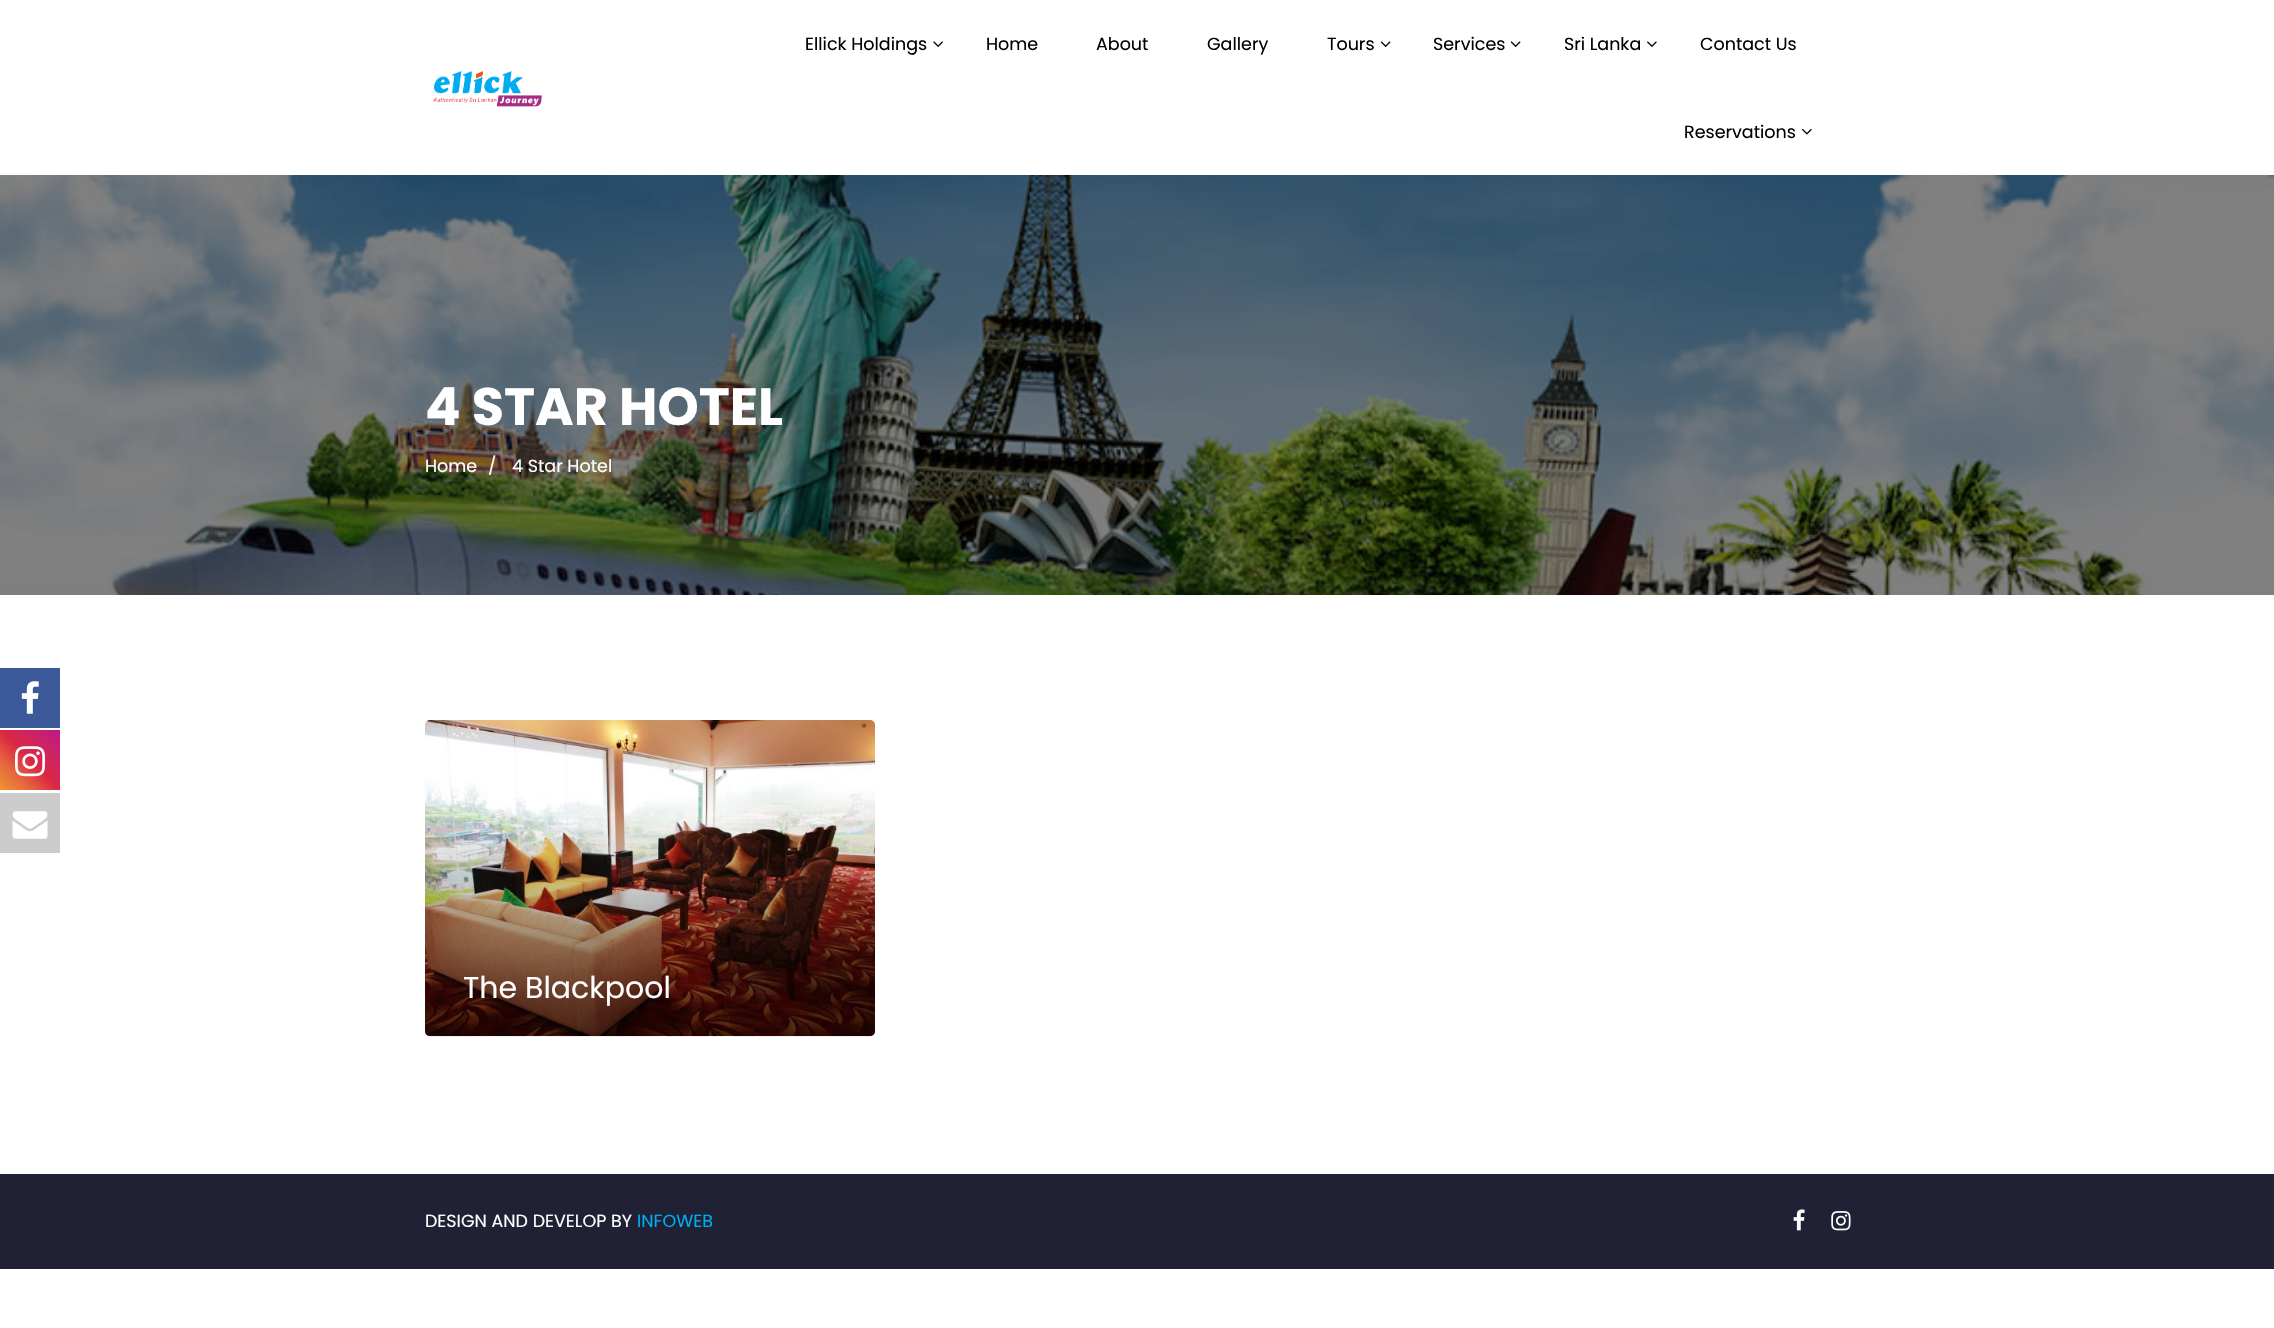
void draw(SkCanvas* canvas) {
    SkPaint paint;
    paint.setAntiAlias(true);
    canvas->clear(0xFFFFFFFF);
    paint.setColor(0xFF3B5998);
    canvas->drawRect(SkRect::MakeXYWH(0, 668, 60, 60), paint);
    canvas->drawImageRect(SkImages::DeferredFromEncodedData(SkData::MakeFromFileName("img1.png")), SkRect::MakeXYWH(21, 681, 18, 33), SkSamplingOptions());
    {
        const SkColor colors[] = {0xFFF09433, 0xFFE6683C, 0xFFDC2743, 0xFFCC2366, 0xFFBC1888};
        const float stops[] = {0, 0.25f, 0.5f, 0.75f, 1};
        const SkPoint ends[] = {{0, 790}, {60, 730}};
        paint.setShader(SkGradientShader::MakeLinear(ends, colors, stops, 5, SkTileMode::kClamp));
        paint.setAlpha(255);
    }
    canvas->drawRect(SkRect::MakeXYWH(0, 730, 60, 60), paint);
    canvas->drawImageRect(SkImages::DeferredFromEncodedData(SkData::MakeFromFileName("img2.png")), SkRect::MakeXYWH(15, 746, 30, 31), SkSamplingOptions());
    paint.setShader(nullptr);
    paint.setColor(0xFFCCCCCC);
    canvas->drawRect(SkRect::MakeXYWH(0, 793, 60, 60), paint);
    canvas->drawImageRect(SkImages::DeferredFromEncodedData(SkData::MakeFromFileName("img3.png")), SkRect::MakeXYWH(12, 811, 36, 28), SkSamplingOptions());
    canvas->drawImageRect(SkImages::DeferredFromEncodedData(SkData::MakeFromFileName("img4.png")), SkRect::MakeXYWH(433, 70, 110, 37), SkSamplingOptions());
    SkFont font1(fontMgr->matchFamilyStyle("Poppins", SkFontStyle::Normal()), 17.5f);
    font1.setSubpixel(true);
    paint.setColor(0xFF000000);
    canvas->drawString("Ellick Holdings", 805, 50, font1, paint);
    canvas->drawImageRect(SkImages::DeferredFromEncodedData(SkData::MakeFromFileName("img5.png")), SkRect::MakeXYWH(933, 41, 10, 6), SkSamplingOptions());
    canvas->drawString("Home", 986, 50, font1, paint);
    canvas->drawString("About", 1096, 50, font1, paint);
    canvas->drawString("Gallery", 1207, 50, font1, paint);
    canvas->drawString("Tours", 1327, 50, font1, paint);
    canvas->drawImageRect(SkImages::DeferredFromEncodedData(SkData::MakeFromFileName("img6.png")), SkRect::MakeXYWH(1380, 41, 11, 6), SkSamplingOptions());
    canvas->drawString("Services", 1433, 50, font1, paint);
    canvas->drawImageRect(SkImages::DeferredFromEncodedData(SkData::MakeFromFileName("img6.png")), SkRect::MakeXYWH(1510, 41, 11, 6), SkSamplingOptions());
    canvas->drawString("Sri Lanka", 1564, 50, font1, paint);
    canvas->drawImageRect(SkImages::DeferredFromEncodedData(SkData::MakeFromFileName("img7.png")), SkRect::MakeXYWH(1647, 41, 10, 6), SkSamplingOptions());
    canvas->drawString("Contact Us", 1700, 50, font1, paint);
    canvas->drawString("Reservations", 1684, 138, font1, paint);
    canvas->drawImageRect(SkImages::DeferredFromEncodedData(SkData::MakeFromFileName("img8.png")), SkRect::MakeXYWH(1802, 128, 10, 7), SkSamplingOptions());
    canvas->drawImageRect(SkImages::DeferredFromEncodedData(SkData::MakeFromFileName("img9.png")), SkRect::MakeXYWH(0, 175, 2274, 420), SkSamplingOptions());
    SkFont font2(fontMgr->matchFamilyStyle("Poppins", SkFontStyle::Bold()), 52.5f);
    font2.setSubpixel(true);
    paint.setColor(0xFFFFFFFF);
    canvas->drawString("4 STAR HOTEL", 425, 425, font2, paint);
    canvas->drawString("Home", 425, 472, font1, paint);
    canvas->drawString("/", 488, 472, font1, paint);
    canvas->drawString("4 Star Hotel", 512, 472, font1, paint);
    canvas->drawImageRect(SkImages::DeferredFromEncodedData(SkData::MakeFromFileName("img10.png")), SkRect::MakeXYWH(425, 720, 450, 317), SkSamplingOptions());
    {
        const SkColor colors[] = {0x00000000, 0x00000000, 0x99000000};
        const float stops[] = {0, 0.3f, 1};
        const SkPoint ends[] = {{650, 720}, {650, 1036}};
        paint.setShader(SkGradientShader::MakeLinear(ends, colors, stops, 3, SkTileMode::kClamp));
        paint.setAlpha(255);
    }
    canvas->drawRoundRect(SkRect::MakeXYWH(425, 720, 450, 316), 5, 5, paint);
    SkFont font3(fontMgr->matchFamilyStyle("Poppins", SkFontStyle::Normal()), 30);
    font3.setSubpixel(true);
    paint.setShader(nullptr);
    paint.setColor(0xFFFFFFFF);
    canvas->drawString("The Blackpool", 463, 998, font3, paint);
    paint.setColor(0xFF202134);
    canvas->drawRect(SkRect::MakeXYWH(0, 1174, 2274, 95), paint);
    paint.setColor(0xFFFFFFFF);
    canvas->drawString("DESIGN AND DEVELOP BY", 425, 1227, font1, paint);
    paint.setColor(0xFF00AEEF);
    canvas->drawString("INFOWEB", 637, 1227, font1, paint);
    canvas->drawImageRect(SkImages::DeferredFromEncodedData(SkData::MakeFromFileName("img11.png")), SkRect::MakeXYWH(1793, 1209, 12, 22), SkSamplingOptions());
    canvas->drawImageRect(SkImages::DeferredFromEncodedData(SkData::MakeFromFileName("img12.png")), SkRect::MakeXYWH(1831, 1211, 20, 20), SkSamplingOptions());
}
